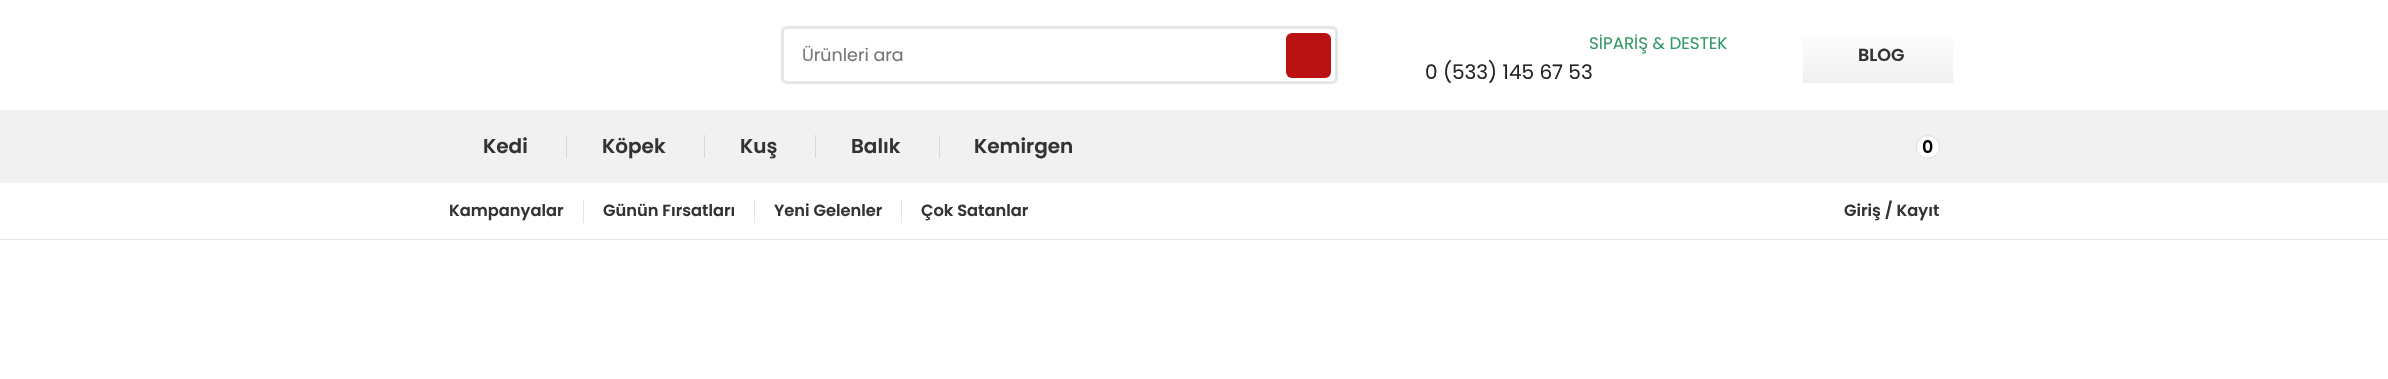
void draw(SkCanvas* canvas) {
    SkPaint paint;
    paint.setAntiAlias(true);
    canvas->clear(0xFFFFFFFF);
    paint.setStyle(SkPaint::kStroke_Style);
    paint.setStrokeWidth(3);
    paint.setColor(0xFFE6E6E6);
    canvas->drawRoundRect(SkRect::MakeXYWH(782.5f, 27.5f, 554, 55), 4.5f, 4.5f, paint);
    SkFont font1(fontMgr->matchFamilyStyle("Poppins", SkFontStyle::Normal()), 17.5f);
    font1.setSubpixel(true);
    paint.setStyle(SkPaint::kFill_Style);
    paint.setColor(0xFF767676);
    canvas->drawString("Ürünleri ara", 802, 61, font1, paint);
    paint.setColor(0xFFBA1212);
    canvas->drawRoundRect(SkRect::MakeXYWH(1286, 33, 45, 45), 6, 6, paint);
    SkFont font2(fontMgr->matchFamilyStyle("Poppins", SkFontStyle::Normal()), 16.75f);
    font2.setSubpixel(true);
    paint.setColor(0xFF339966);
    canvas->drawString("SİPARİŞ & DESTEK", 1589, 49, font2, paint);
    SkFont font3(fontMgr->matchFamilyStyle("Poppins", SkFontStyle::Normal()), 20);
    font3.setSubpixel(true);
    paint.setColor(0xFF242424);
    canvas->drawString("0 (533) 145 67 53", 1425, 79, font3, paint);
    {
        const SkColor colors[] = {0xFFF0F0F0, 0xFFFFFFFF};
        const float stops[] = {0, 1};
        const SkPoint ends[] = {{1878, 83}, {1878, 28}};
        paint.setShader(SkGradientShader::MakeLinear(ends, colors, stops, 2, SkTileMode::kClamp));
        paint.setAlpha(255);
    }
    canvas->drawRect(SkRect::MakeXYWH(1803, 37, 150, 46), paint);
    SkFont font4(fontMgr->matchFamilyStyle("Poppins", SkFontStyle(600, SkFontStyle::kNormal_Width, SkFontStyle::kUpright_Slant)), 17.5f);
    font4.setSubpixel(true);
    paint.setShader(nullptr);
    paint.setColor(0xFF333333);
    canvas->drawString("BLOG", 1858, 61, font4, paint);
    paint.setColor(0xFFF1F1F1);
    canvas->drawRect(SkRect::MakeXYWH(0, 110, 2388, 73), paint);
    SkFont font5(fontMgr->matchFamilyStyle("Poppins", SkFontStyle(600, SkFontStyle::kNormal_Width, SkFontStyle::kUpright_Slant)), 20);
    font5.setSubpixel(true);
    paint.setColor(0xFF333333);
    canvas->drawString("Kedi", 483, 153, font5, paint);
    paint.setColor(0xFFD7D7D7);
    canvas->drawRect(SkRect::MakeXYWH(566, 135, 1, 23), paint);
    paint.setColor(0xFF333333);
    canvas->drawString("Köpek", 602, 153, font5, paint);
    paint.setColor(0xFFD7D7D7);
    canvas->drawRect(SkRect::MakeXYWH(704, 135, 1, 23), paint);
    paint.setColor(0xFF333333);
    canvas->drawString("Kuş", 740, 153, font5, paint);
    paint.setColor(0xFFD7D7D7);
    canvas->drawRect(SkRect::MakeXYWH(815, 135, 1, 23), paint);
    paint.setColor(0xFF333333);
    canvas->drawString("Balık", 851, 153, font5, paint);
    paint.setColor(0xFFD7D7D7);
    canvas->drawRect(SkRect::MakeXYWH(939, 135, 1, 23), paint);
    paint.setColor(0xFF333333);
    canvas->drawString("Kemirgen", 974, 153, font5, paint);
    paint.setColor(0xFFFFFFFF);
    canvas->drawCircle(1928, 147, 11.5f, paint);
    paint.setStyle(SkPaint::kStroke_Style);
    paint.setStrokeWidth(1);
    paint.setColor(0xFFDEDEDE);
    canvas->drawCircle(1928, 147, 11.5f, paint);
    paint.setStyle(SkPaint::kFill_Style);
    paint.setColor(0xFF000000);
    canvas->drawString("0", 1922, 153, font4, paint);
    paint.setColor(0xFFE6E6E6);
    canvas->drawRect(SkRect::MakeXYWH(0, 239, 2388, 1), paint);
    SkFont font6(fontMgr->matchFamilyStyle("Poppins", SkFontStyle(600, SkFontStyle::kNormal_Width, SkFontStyle::kUpright_Slant)), 16.25f);
    font6.setSubpixel(true);
    paint.setColor(0xFF333333);
    canvas->drawString("Kampanyalar", 449, 216, font6, paint);
    paint.setColor(0xFFE4E4E4);
    canvas->drawRect(SkRect::MakeXYWH(583, 200, 1, 23), paint);
    paint.setColor(0xFF333333);
    canvas->drawString("Günün Fırsatları", 603, 216, font6, paint);
    paint.setColor(0xFFE4E4E4);
    canvas->drawRect(SkRect::MakeXYWH(754, 200, 1, 23), paint);
    paint.setColor(0xFF333333);
    canvas->drawString("Yeni Gelenler", 774, 216, font6, paint);
    paint.setColor(0xFFE4E4E4);
    canvas->drawRect(SkRect::MakeXYWH(901, 200, 1, 23), paint);
    paint.setColor(0xFF333333);
    canvas->drawString("Çok Satanlar", 921, 216, font6, paint);
    canvas->drawString("Giriş / Kayıt", 1844, 216, font6, paint);
}
